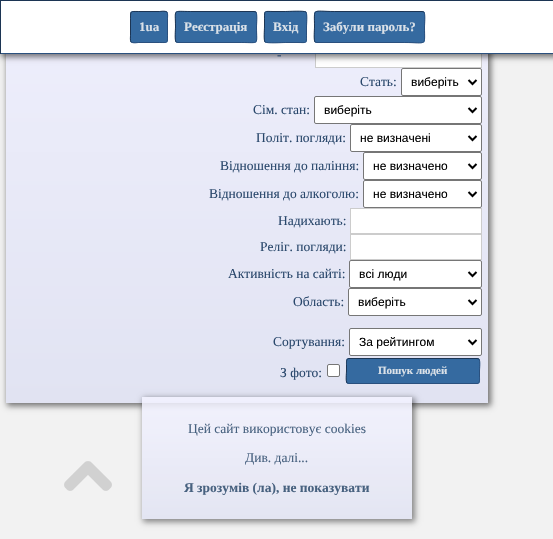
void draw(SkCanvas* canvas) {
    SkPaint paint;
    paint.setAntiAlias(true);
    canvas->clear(0xFFF2F2F2);
    paint.setColor(0x87000000);
    paint.setMaskFilter(SkMaskFilter::MakeBlur(kNormal_SkBlurStyle, 3));
    canvas->drawRect(SkRect::MakeXYWH(7, -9, 484, 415), paint);
    paint.setMaskFilter(nullptr);
    {
        const SkColor colors[] = {0xFFF2F2FF, 0xFFE1E3F2};
        const float stops[] = {0, 1};
        const SkPoint ends[] = {{247, -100}, {247, 403}};
        paint.setShader(SkGradientShader::MakeLinear(ends, colors, stops, 2, SkTileMode::kClamp));
        paint.setAlpha(255);
    }
    canvas->drawRect(SkRect::MakeXYWH(6, 54, 482, 349), paint);
    paint.setShader(nullptr);
    paint.setColor(0xFFFFFFFF);
    canvas->drawRect(SkRect::MakeXYWH(316, 54, 165, 13), paint);
    paint.setStyle(SkPaint::kStroke_Style);
    paint.setStrokeWidth(1);
    paint.setColor(0xFFCCCCCC);
    canvas->drawRect(SkRect::MakeXYWH(315.5f, 42.5f, 166, 25), paint);
    paint.setStyle(SkPaint::kFill_Style);
    paint.setColor(0x87000000);
    paint.setMaskFilter(SkMaskFilter::MakeBlur(kNormal_SkBlurStyle, 3));
    canvas->drawRect(SkRect::MakeXYWH(1, 1, 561, 56), paint);
    paint.setMaskFilter(nullptr);
    paint.setColor(0xFFFFFFFF);
    canvas->drawRect(SkRect::MakeXYWH(1, 1, 552, 52), paint);
    paint.setColor(0xFF1C3554);
    canvas->drawRect(SkRect::MakeXYWH(0, 0, 553, 1), paint);
    paint.setColor(0xFF2A507E);
    canvas->drawRect(SkRect::MakeXYWH(0, 53, 553, 1), paint);
    paint.setColor(0xFF1C3554);
    canvas->drawRect(SkRect::MakeXYWH(0, 0, 1, 54), paint);
    paint.setColor(0xFF356AA0);
    canvas->drawRoundRect(SkRect::MakeXYWH(130, 11, 38, 32), 3, 3, paint);
    paint.setStyle(SkPaint::kStroke_Style);
    paint.setColor(0xFF2A507E);
    canvas->drawPath(SkPathBuilder().moveTo(167, 12).cubicTo(168, 13.5f, 167.5f, 17, 167.5f, 18.5f).lineTo(167.5f, 35.5f).cubicTo(167.5f, 43.5f, 167.5f, 42.5f, 159.5f, 42.5f).lineTo(138.5f, 42.5f).cubicTo(137.5f, 42.5f, 133, 43.5f, 131, 42).detach(), paint);
    paint.setColor(0xFF1C3554);
    canvas->drawPath(SkPathBuilder().moveTo(131, 42).cubicTo(130, 40.5f, 130.5f, 37, 130.5f, 35.5f).lineTo(130.5f, 18.5f).cubicTo(130.5f, 10.5f, 130.5f, 11.5f, 138.5f, 11.5f).lineTo(159.5f, 11.5f).cubicTo(160.5f, 11.5f, 165, 10.5f, 167, 12).detach(), paint);
    SkFont font1(fontMgr->matchFamilyStyle("Liberation Serif", SkFontStyle::Bold()), 13);
    font1.setSubpixel(true);
    paint.setStyle(SkPaint::kFill_Style);
    paint.setColor(0xFFDAE1E8);
    canvas->drawString("1ua", 139, 31, font1, paint);
    paint.setColor(0xFF356AA0);
    canvas->drawRoundRect(SkRect::MakeXYWH(175, 11, 82, 32), 3, 3, paint);
    paint.setStyle(SkPaint::kStroke_Style);
    paint.setColor(0xFF2A507E);
    canvas->drawPath(SkPathBuilder().moveTo(256, 12).cubicTo(257.5f, 14, 256.5f, 24.5f, 256.5f, 27).cubicTo(256.5f, 45.5f, 260, 42.5f, 241.5f, 42.5f).lineTo(178, 42.5f).lineTo(176, 42).detach(), paint);
    paint.setColor(0xFF1C3554);
    canvas->drawPath(SkPathBuilder().moveTo(176, 42).cubicTo(174.5f, 40, 175.5f, 29.5f, 175.5f, 27).cubicTo(175.5f, 8.5f, 172, 11.5f, 190.5f, 11.5f).lineTo(254, 11.5f).lineTo(256, 12).detach(), paint);
    paint.setStyle(SkPaint::kFill_Style);
    paint.setColor(0xFFDAE1E8);
    canvas->drawString("Реєстрація", 184, 31, font1, paint);
    paint.setColor(0xFF356AA0);
    canvas->drawRoundRect(SkRect::MakeXYWH(264, 11, 43, 32), 3, 3, paint);
    paint.setStyle(SkPaint::kStroke_Style);
    paint.setColor(0xFF2A507E);
    canvas->drawPath(SkPathBuilder().moveTo(306, 12).cubicTo(307.5f, 14, 306.5f, 24.5f, 306.5f, 27).lineTo(306.5f, 35.5f).cubicTo(306.5f, 44, 306.5f, 42.5f, 298, 42.5f).lineTo(285.5f, 42.5f).cubicTo(282.5f, 42.5f, 267, 43.5f, 265, 42).detach(), paint);
    paint.setColor(0xFF1C3554);
    canvas->drawPath(SkPathBuilder().moveTo(265, 42).cubicTo(263.5f, 40, 264.5f, 29.5f, 264.5f, 27).lineTo(264.5f, 18.5f).cubicTo(264.5f, 10, 264.5f, 11.5f, 273, 11.5f).lineTo(285.5f, 11.5f).cubicTo(288.5f, 11.5f, 304, 10.5f, 306, 12).detach(), paint);
    paint.setStyle(SkPaint::kFill_Style);
    paint.setColor(0xFFDAE1E8);
    canvas->drawString("Вхід", 273, 31, font1, paint);
    paint.setColor(0xFF356AA0);
    canvas->drawRoundRect(SkRect::MakeXYWH(314, 11, 111, 32), 3, 3, paint);
    paint.setStyle(SkPaint::kStroke_Style);
    paint.setColor(0xFF2A507E);
    canvas->drawPath(SkPathBuilder().moveTo(424, 12).cubicTo(425.5f, 14, 424.5f, 24.5f, 424.5f, 27).cubicTo(424.5f, 47, 427.5f, 42.5f, 404.5f, 42.5f).lineTo(317, 42.5f).lineTo(315, 42).detach(), paint);
    paint.setColor(0xFF1C3554);
    canvas->drawPath(SkPathBuilder().moveTo(315, 42).cubicTo(313.5f, 40, 314.5f, 29.5f, 314.5f, 27).cubicTo(314.5f, 7, 311.5f, 11.5f, 334.5f, 11.5f).lineTo(422, 11.5f).lineTo(424, 12).detach(), paint);
    paint.setStyle(SkPaint::kFill_Style);
    paint.setColor(0xFFDAE1E8);
    canvas->drawString("Забули пароль?", 323, 31, font1, paint);
    SkFont font2(fontMgr->matchFamilyStyle("Liberation Serif", SkFontStyle::Normal()), 13.5f);
    font2.setSubpixel(true);
    paint.setColor(0xFF29476B);
    canvas->drawString("-", 277, 59, font2, paint);
    canvas->drawString("Стать:", 360, 86, font2, paint);
    paint.setColor(0xFFFFFFFF);
    canvas->drawRoundRect(SkRect::MakeXYWH(401.5f, 68.5f, 80, 27), 1.5f, 1.5f, paint);
    paint.setStyle(SkPaint::kStroke_Style);
    paint.setColor(0xFF767676);
    canvas->drawRoundRect(SkRect::MakeXYWH(401.5f, 68.5f, 80, 27), 1.5f, 1.5f, paint);
    paint.setStrokeWidth(2);
    paint.setColor(0xFF000000);
    canvas->drawPath(SkPathBuilder().moveTo(468.5f, 80).lineTo(472.5f, 84).lineTo(476.5f, 80).detach(), paint);
    SkFont font3(fontMgr->matchFamilyStyle("Liberation Sans", SkFontStyle::Normal()), 12);
    font3.setSubpixel(true);
    paint.setStyle(SkPaint::kFill_Style);
    canvas->drawString("виберіть", 411, 86, font3, paint);
    paint.setColor(0xFF29476B);
    canvas->drawString("Сім. стан:", 253, 114, font2, paint);
    paint.setColor(0xFFFFFFFF);
    canvas->drawRoundRect(SkRect::MakeXYWH(314.5f, 96.5f, 167, 27), 1.5f, 1.5f, paint);
    paint.setStyle(SkPaint::kStroke_Style);
    paint.setStrokeWidth(1);
    paint.setColor(0xFF767676);
    canvas->drawRoundRect(SkRect::MakeXYWH(314.5f, 96.5f, 167, 27), 1.5f, 1.5f, paint);
    paint.setStrokeWidth(2);
    paint.setColor(0xFF000000);
    canvas->drawPath(SkPathBuilder().moveTo(468.5f, 108).lineTo(472.5f, 112).lineTo(476.5f, 108).detach(), paint);
    paint.setStyle(SkPaint::kFill_Style);
    canvas->drawString("виберіть", 324, 114, font3, paint);
    paint.setColor(0xFF29476B);
    canvas->drawString("Полiт. погляди:", 256, 142, font2, paint);
    paint.setColor(0xFFFFFFFF);
    canvas->drawRoundRect(SkRect::MakeXYWH(350.5f, 124.5f, 131, 27), 1.5f, 1.5f, paint);
    paint.setStyle(SkPaint::kStroke_Style);
    paint.setStrokeWidth(1);
    paint.setColor(0xFF767676);
    canvas->drawRoundRect(SkRect::MakeXYWH(350.5f, 124.5f, 131, 27), 1.5f, 1.5f, paint);
    paint.setStrokeWidth(2);
    paint.setColor(0xFF000000);
    canvas->drawPath(SkPathBuilder().moveTo(468.5f, 136).lineTo(472.5f, 140).lineTo(476.5f, 136).detach(), paint);
    paint.setStyle(SkPaint::kFill_Style);
    canvas->drawString("не визначені", 360, 142, font3, paint);
    paint.setColor(0xFF29476B);
    canvas->drawString("Відношення до паління:", 220, 170, font2, paint);
    paint.setColor(0xFFFFFFFF);
    canvas->drawRoundRect(SkRect::MakeXYWH(363.5f, 152.5f, 118, 27), 1.5f, 1.5f, paint);
    paint.setStyle(SkPaint::kStroke_Style);
    paint.setStrokeWidth(1);
    paint.setColor(0xFF767676);
    canvas->drawRoundRect(SkRect::MakeXYWH(363.5f, 152.5f, 118, 27), 1.5f, 1.5f, paint);
    paint.setStrokeWidth(2);
    paint.setColor(0xFF000000);
    canvas->drawPath(SkPathBuilder().moveTo(468.5f, 164).lineTo(472.5f, 168).lineTo(476.5f, 164).detach(), paint);
    paint.setStyle(SkPaint::kFill_Style);
    canvas->drawString("не визначено", 373, 170, font3, paint);
    paint.setColor(0xFF29476B);
    canvas->drawString("Відношення до алкоголю:", 209, 198, font2, paint);
    paint.setColor(0xFFFFFFFF);
    canvas->drawRoundRect(SkRect::MakeXYWH(363.5f, 180.5f, 118, 27), 1.5f, 1.5f, paint);
    paint.setStyle(SkPaint::kStroke_Style);
    paint.setStrokeWidth(1);
    paint.setColor(0xFF767676);
    canvas->drawRoundRect(SkRect::MakeXYWH(363.5f, 180.5f, 118, 27), 1.5f, 1.5f, paint);
    paint.setStrokeWidth(2);
    paint.setColor(0xFF000000);
    canvas->drawPath(SkPathBuilder().moveTo(468.5f, 192).lineTo(472.5f, 196).lineTo(476.5f, 192).detach(), paint);
    paint.setStyle(SkPaint::kFill_Style);
    canvas->drawString("не визначено", 373, 198, font3, paint);
    paint.setColor(0xFF29476B);
    canvas->drawString("Надихають:", 278, 225, font2, paint);
    paint.setColor(0xFFFFFFFF);
    canvas->drawRect(SkRect::MakeXYWH(350.5f, 208.5f, 131, 25), paint);
    paint.setStyle(SkPaint::kStroke_Style);
    paint.setStrokeWidth(1);
    paint.setColor(0xFFCCCCCC);
    canvas->drawRect(SkRect::MakeXYWH(350.5f, 208.5f, 131, 25), paint);
    paint.setStyle(SkPaint::kFill_Style);
    paint.setColor(0xFF29476B);
    canvas->drawString("Релiг. погляди:", 260, 251, font2, paint);
    paint.setColor(0xFFFFFFFF);
    canvas->drawRect(SkRect::MakeXYWH(350.5f, 234.5f, 131, 25), paint);
    paint.setStyle(SkPaint::kStroke_Style);
    paint.setColor(0xFFCCCCCC);
    canvas->drawRect(SkRect::MakeXYWH(350.5f, 234.5f, 131, 25), paint);
    paint.setStyle(SkPaint::kFill_Style);
    paint.setColor(0xFF29476B);
    canvas->drawString("Активність на сайті:", 228, 278, font2, paint);
    paint.setColor(0xFFFFFFFF);
    canvas->drawRoundRect(SkRect::MakeXYWH(349.5f, 260.5f, 132, 27), 1.5f, 1.5f, paint);
    paint.setStyle(SkPaint::kStroke_Style);
    paint.setColor(0xFF767676);
    canvas->drawRoundRect(SkRect::MakeXYWH(349.5f, 260.5f, 132, 27), 1.5f, 1.5f, paint);
    paint.setStrokeWidth(2);
    paint.setColor(0xFF000000);
    canvas->drawPath(SkPathBuilder().moveTo(468.5f, 272).lineTo(472.5f, 276).lineTo(476.5f, 272).detach(), paint);
    paint.setStyle(SkPaint::kFill_Style);
    canvas->drawString("всі люди", 359, 278, font3, paint);
    paint.setColor(0xFF29476B);
    canvas->drawString("Область:", 293, 306, font2, paint);
    paint.setColor(0xFFFFFFFF);
    canvas->drawRoundRect(SkRect::MakeXYWH(348.5f, 288.5f, 133, 27), 1.5f, 1.5f, paint);
    paint.setStyle(SkPaint::kStroke_Style);
    paint.setStrokeWidth(1);
    paint.setColor(0xFF767676);
    canvas->drawRoundRect(SkRect::MakeXYWH(348.5f, 288.5f, 133, 27), 1.5f, 1.5f, paint);
    paint.setStrokeWidth(2);
    paint.setColor(0xFF000000);
    canvas->drawPath(SkPathBuilder().moveTo(468.5f, 300).lineTo(472.5f, 304).lineTo(476.5f, 300).detach(), paint);
    paint.setStyle(SkPaint::kFill_Style);
    canvas->drawString("виберіть", 358, 306, font3, paint);
    paint.setColor(0xFF29476B);
    canvas->drawString("Сортування:", 273, 346, font2, paint);
    paint.setColor(0xFFFFFFFF);
    canvas->drawRoundRect(SkRect::MakeXYWH(349.5f, 328.5f, 132, 27), 1.5f, 1.5f, paint);
    paint.setStyle(SkPaint::kStroke_Style);
    paint.setStrokeWidth(1);
    paint.setColor(0xFF767676);
    canvas->drawRoundRect(SkRect::MakeXYWH(349.5f, 328.5f, 132, 27), 1.5f, 1.5f, paint);
    paint.setStrokeWidth(2);
    paint.setColor(0xFF000000);
    canvas->drawPath(SkPathBuilder().moveTo(468.5f, 340).lineTo(472.5f, 344).lineTo(476.5f, 340).detach(), paint);
    paint.setStyle(SkPaint::kFill_Style);
    canvas->drawString("За рейтингом", 359, 346, font3, paint);
    paint.setColor(0xFF29476B);
    canvas->drawString("З фото:", 280, 377, font2, paint);
    paint.setColor(0xFFFFFFFF);
    canvas->drawRoundRect(SkRect::MakeXYWH(327.5f, 364.5f, 12, 12), 1.5f, 1.5f, paint);
    paint.setStyle(SkPaint::kStroke_Style);
    paint.setStrokeWidth(1);
    paint.setColor(0xFF767676);
    canvas->drawRoundRect(SkRect::MakeXYWH(327.5f, 364.5f, 12, 12), 1.5f, 1.5f, paint);
    paint.setStyle(SkPaint::kFill_Style);
    paint.setColor(0xFF356AA0);
    canvas->drawRoundRect(SkRect::MakeXYWH(346, 358, 134, 26), 3, 3, paint);
    paint.setStyle(SkPaint::kStroke_Style);
    paint.setColor(0xFF2A507E);
    canvas->drawPath(SkPathBuilder().moveTo(479, 359).cubicTo(480.5f, 361, 479.5f, 368.5f, 479.5f, 371).lineTo(479.5f, 377.5f).cubicTo(479.5f, 379.5f, 480, 383.5f, 477, 383.5f).lineTo(349, 383.5f).lineTo(347, 383).detach(), paint);
    paint.setColor(0xFF1C3554);
    canvas->drawPath(SkPathBuilder().moveTo(347, 383).cubicTo(345.5f, 381, 346.5f, 373.5f, 346.5f, 371).lineTo(346.5f, 364.5f).cubicTo(346.5f, 362.5f, 346, 358.5f, 349, 358.5f).lineTo(477, 358.5f).lineTo(479, 359).detach(), paint);
    SkFont font4(fontMgr->matchFamilyStyle("Liberation Serif", SkFontStyle::Bold()), 11);
    font4.setSubpixel(true);
    paint.setStyle(SkPaint::kFill_Style);
    paint.setColor(0xFFDAE1E8);
    canvas->drawString("Пошук людей", 378, 374, font4, paint);
    canvas->drawImageRect(SkImages::DeferredFromEncodedData(SkData::MakeFromFileName("img1.png")), SkRect::MakeXYWH(64, 461, 48, 30), SkSamplingOptions());
    canvas->save();
    canvas->clipPath(SkPathBuilder(SkPathFillType::kEvenOdd).moveTo(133, 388).lineTo(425, 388).lineTo(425, 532).lineTo(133, 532).close().moveTo(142, 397).lineTo(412, 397).lineTo(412, 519).lineTo(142, 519).close().detach(), true);
    paint.setColor(0x73000000);
    paint.setMaskFilter(SkMaskFilter::MakeBlur(kNormal_SkBlurStyle, 3));
    canvas->drawRect(SkRect::MakeXYWH(143, 398, 272, 124), paint);
    paint.setMaskFilter(nullptr);
    canvas->restore();
    {
        const SkColor colors[] = {0xD9F2F2FF, 0xD9E1E3F2};
        const float stops[] = {0, 1};
        const SkPoint ends[] = {{277, 397}, {277, 519}};
        paint.setShader(SkGradientShader::MakeLinear(ends, colors, stops, 2, SkTileMode::kClamp));
        paint.setAlpha(255);
    }
    canvas->drawRect(SkRect::MakeXYWH(142, 397, 270, 122), paint);
    paint.setShader(nullptr);
    paint.setColor(0xFF47617F);
    canvas->drawString("Цей сайт використовує cookies", 188, 433, font2, paint);
    canvas->drawString("Див. далі...", 245, 462, font2, paint);
    SkFont font5(fontMgr->matchFamilyStyle("Liberation Serif", SkFontStyle::Bold()), 13.5f);
    font5.setSubpixel(true);
    canvas->drawString("Я зрозумів (ла), не показувати", 184, 492, font5, paint);
}
